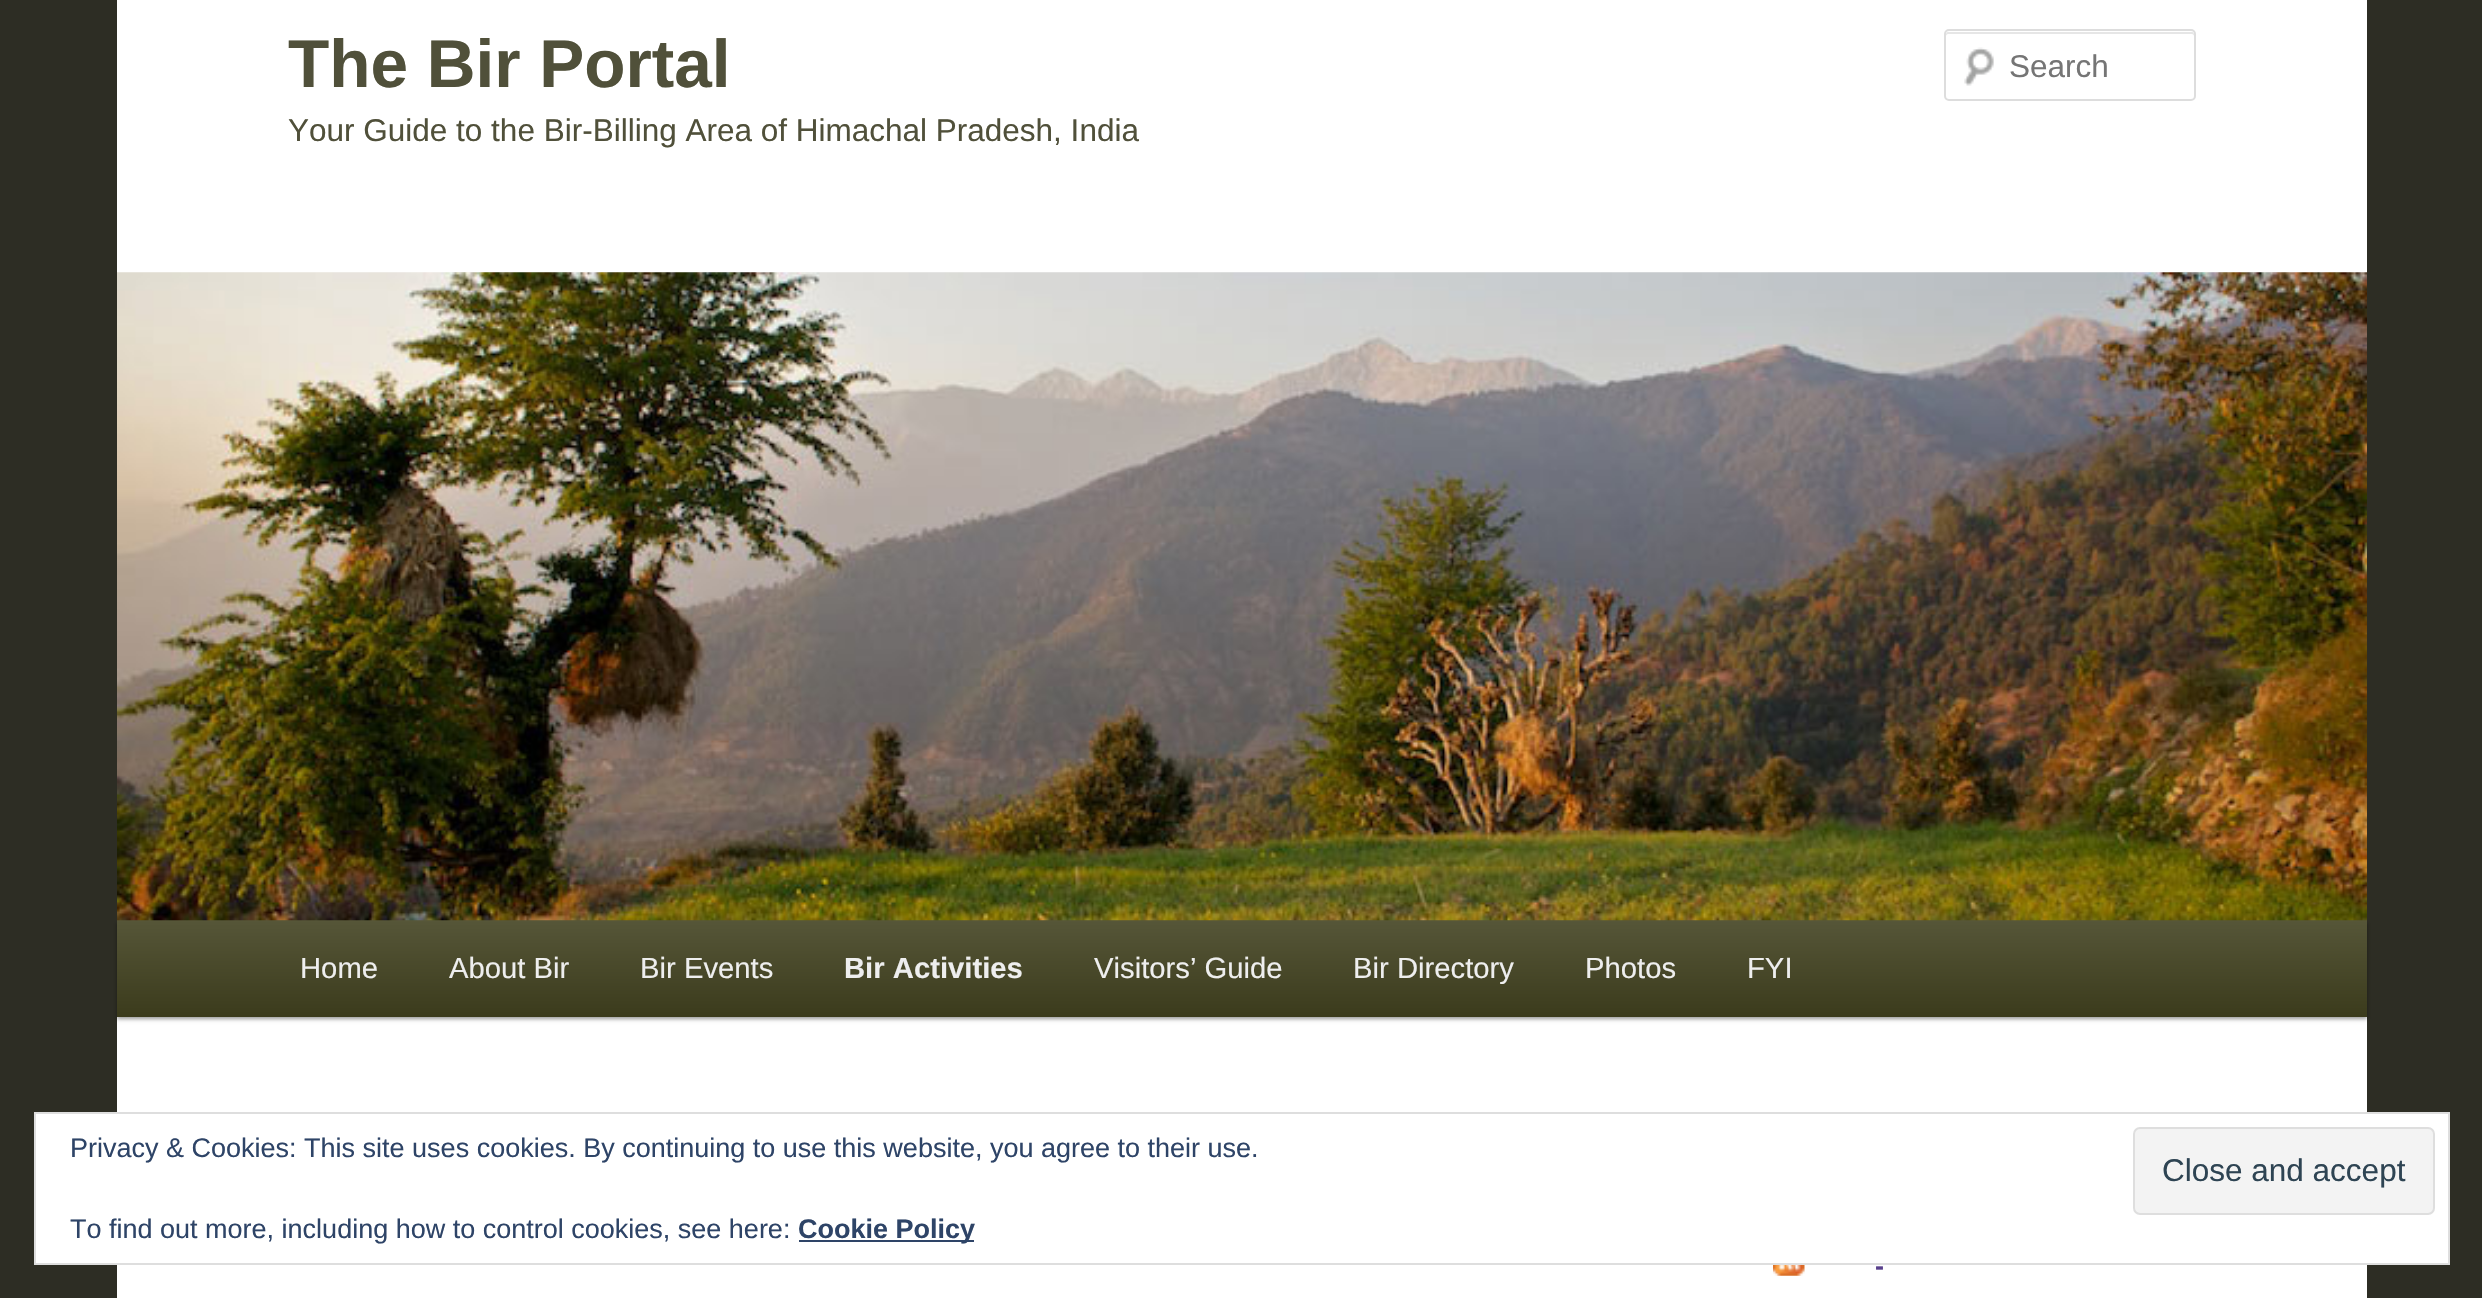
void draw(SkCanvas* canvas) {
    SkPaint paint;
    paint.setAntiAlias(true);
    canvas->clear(0xFF2D2D24);
    paint.setColor(0xFFFFFFFF);
    canvas->drawRect(SkRect::MakeXYWH(117, 0, 2250, 1298), paint);
    SkFont font1(fontMgr->matchFamilyStyle("Liberation Sans", SkFontStyle::Bold()), 67.5f);
    font1.setSubpixel(true);
    paint.setColor(0xFF50503A);
    canvas->drawString("The Bir Portal", 288, 87, font1, paint);
    SkFont font2(fontMgr->matchFamilyStyle("Liberation Sans", SkFontStyle::Normal()), 31.5f);
    font2.setSubpixel(true);
    canvas->drawString("Your Guide to the Bir-Billing Area of Himachal Pradesh, India", 288, 141, font2, paint);
    canvas->drawImageRect(SkImages::DeferredFromEncodedData(SkData::MakeFromFileName("img1.png")), SkRect::MakeXYWH(1964, 47, 30, 39), SkSamplingOptions());
    paint.setColor(0xFFE6E6E6);
    canvas->drawPath(SkPathBuilder().moveTo(1948, 34).lineTo(2192, 34).cubicTo(2193, 34, 2194, 35, 2194, 36).cubicTo(2194, 34, 2194, 32, 2192, 32).lineTo(1948, 32).cubicTo(1946, 32, 1946, 34, 1946, 36).cubicTo(1946, 35, 1947, 34, 1948, 34).close().detach(), paint);
    paint.setStyle(SkPaint::kStroke_Style);
    paint.setStrokeWidth(2);
    paint.setColor(0xFFDDDDDD);
    canvas->drawRoundRect(SkRect::MakeXYWH(1945, 30, 250, 70), 4, 4, paint);
    paint.setStyle(SkPaint::kFill_Style);
    paint.setColor(0xFF757575);
    canvas->drawString("Search", 2009, 77, font2, paint);
    paint.setColor(0x66000000);
    paint.setMaskFilter(SkMaskFilter::MakeBlur(kNormal_SkBlurStyle, 2));
    canvas->drawRect(SkRect::MakeXYWH(117, 923, 2250, 96), paint);
    paint.setMaskFilter(nullptr);
    {
        const SkColor colors[] = {0xFF565638, 0xFF3B3B1C};
        const float stops[] = {0, 1};
        const SkPoint ends[] = {{1242, 920}, {1242, 1017}};
        paint.setShader(SkGradientShader::MakeLinear(ends, colors, stops, 2, SkTileMode::kClamp));
        paint.setAlpha(255);
    }
    canvas->drawRect(SkRect::MakeXYWH(117, 920, 2250, 97), paint);
    canvas->drawImageRect(SkImages::DeferredFromEncodedData(SkData::MakeFromFileName("img2.png")), SkRect::MakeXYWH(117, 272, 2250, 649), SkSamplingOptions());
    SkFont font3(fontMgr->matchFamilyStyle("Liberation Sans", SkFontStyle::Normal()), 29.25f);
    font3.setSubpixel(true);
    paint.setShader(nullptr);
    paint.setColor(0xFFEEEEEE);
    canvas->drawString("Home", 300, 978, font3, paint);
    canvas->drawString("About Bir", 449, 978, font3, paint);
    canvas->drawString("Bir Events", 640, 978, font3, paint);
    SkFont font4(fontMgr->matchFamilyStyle("Liberation Sans", SkFontStyle::Bold()), 29.25f);
    font4.setSubpixel(true);
    canvas->drawString("Bir Activities", 844, 978, font4, paint);
    canvas->drawString("Visitors’ Guide", 1094, 978, font3, paint);
    canvas->drawString("Bir Directory", 1353, 978, font3, paint);
    canvas->drawString("Photos", 1585, 978, font3, paint);
    canvas->drawString("FYI", 1747, 978, font3, paint);
    canvas->drawImageRect(SkImages::DeferredFromEncodedData(SkData::MakeFromFileName("img3.png")), SkRect::MakeXYWH(1773, 1265, 32, 11), SkSamplingOptions());
    SkFont font5(fontMgr->matchFamilyStyle("Liberation Sans", SkFontStyle::Bold()), 27);
    font5.setSubpixel(true);
    paint.setColor(0xFF58408C);
    canvas->drawString("-", 1875, 1275, font5, paint);
    paint.setColor(0xFFFFFFFF);
    canvas->drawRect(SkRect::MakeXYWH(35, 1113, 2414, 151), paint);
    paint.setStyle(SkPaint::kStroke_Style);
    paint.setColor(0xFFDEDEDE);
    canvas->drawRect(SkRect::MakeXYWH(35, 1113, 2414, 151), paint);
    SkFont font6(fontMgr->matchFamilyStyle("Liberation Sans", SkFontStyle::Normal()), 27);
    font6.setSubpixel(true);
    paint.setStyle(SkPaint::kFill_Style);
    paint.setColor(0xFF2E4467);
    canvas->drawString("Privacy & Cookies: This site uses cookies. By continuing to use this website, you agree to their use.", 70, 1157, font6, paint);
    paint.setColor(0xFFF3F3F3);
    canvas->drawRoundRect(SkRect::MakeXYWH(2134, 1128, 300, 86), 6, 6, paint);
    paint.setStyle(SkPaint::kStroke_Style);
    paint.setColor(0xFFDEDEDE);
    canvas->drawRoundRect(SkRect::MakeXYWH(2134, 1128, 300, 86), 6, 6, paint);
    paint.setStyle(SkPaint::kFill_Style);
    paint.setColor(0xFF2E4453);
    canvas->drawString("Close and accept", 2162, 1181, font2, paint);
    paint.setColor(0xFF2E4467);
    canvas->drawString("To find out more, including how to control cookies, see here:", 70, 1238, font6, paint);
    canvas->drawRect(SkRect::MakeXYWH(799, 1240, 175, 2), paint);
    canvas->drawString("Cookie Policy", 798, 1238, font5, paint);
}
